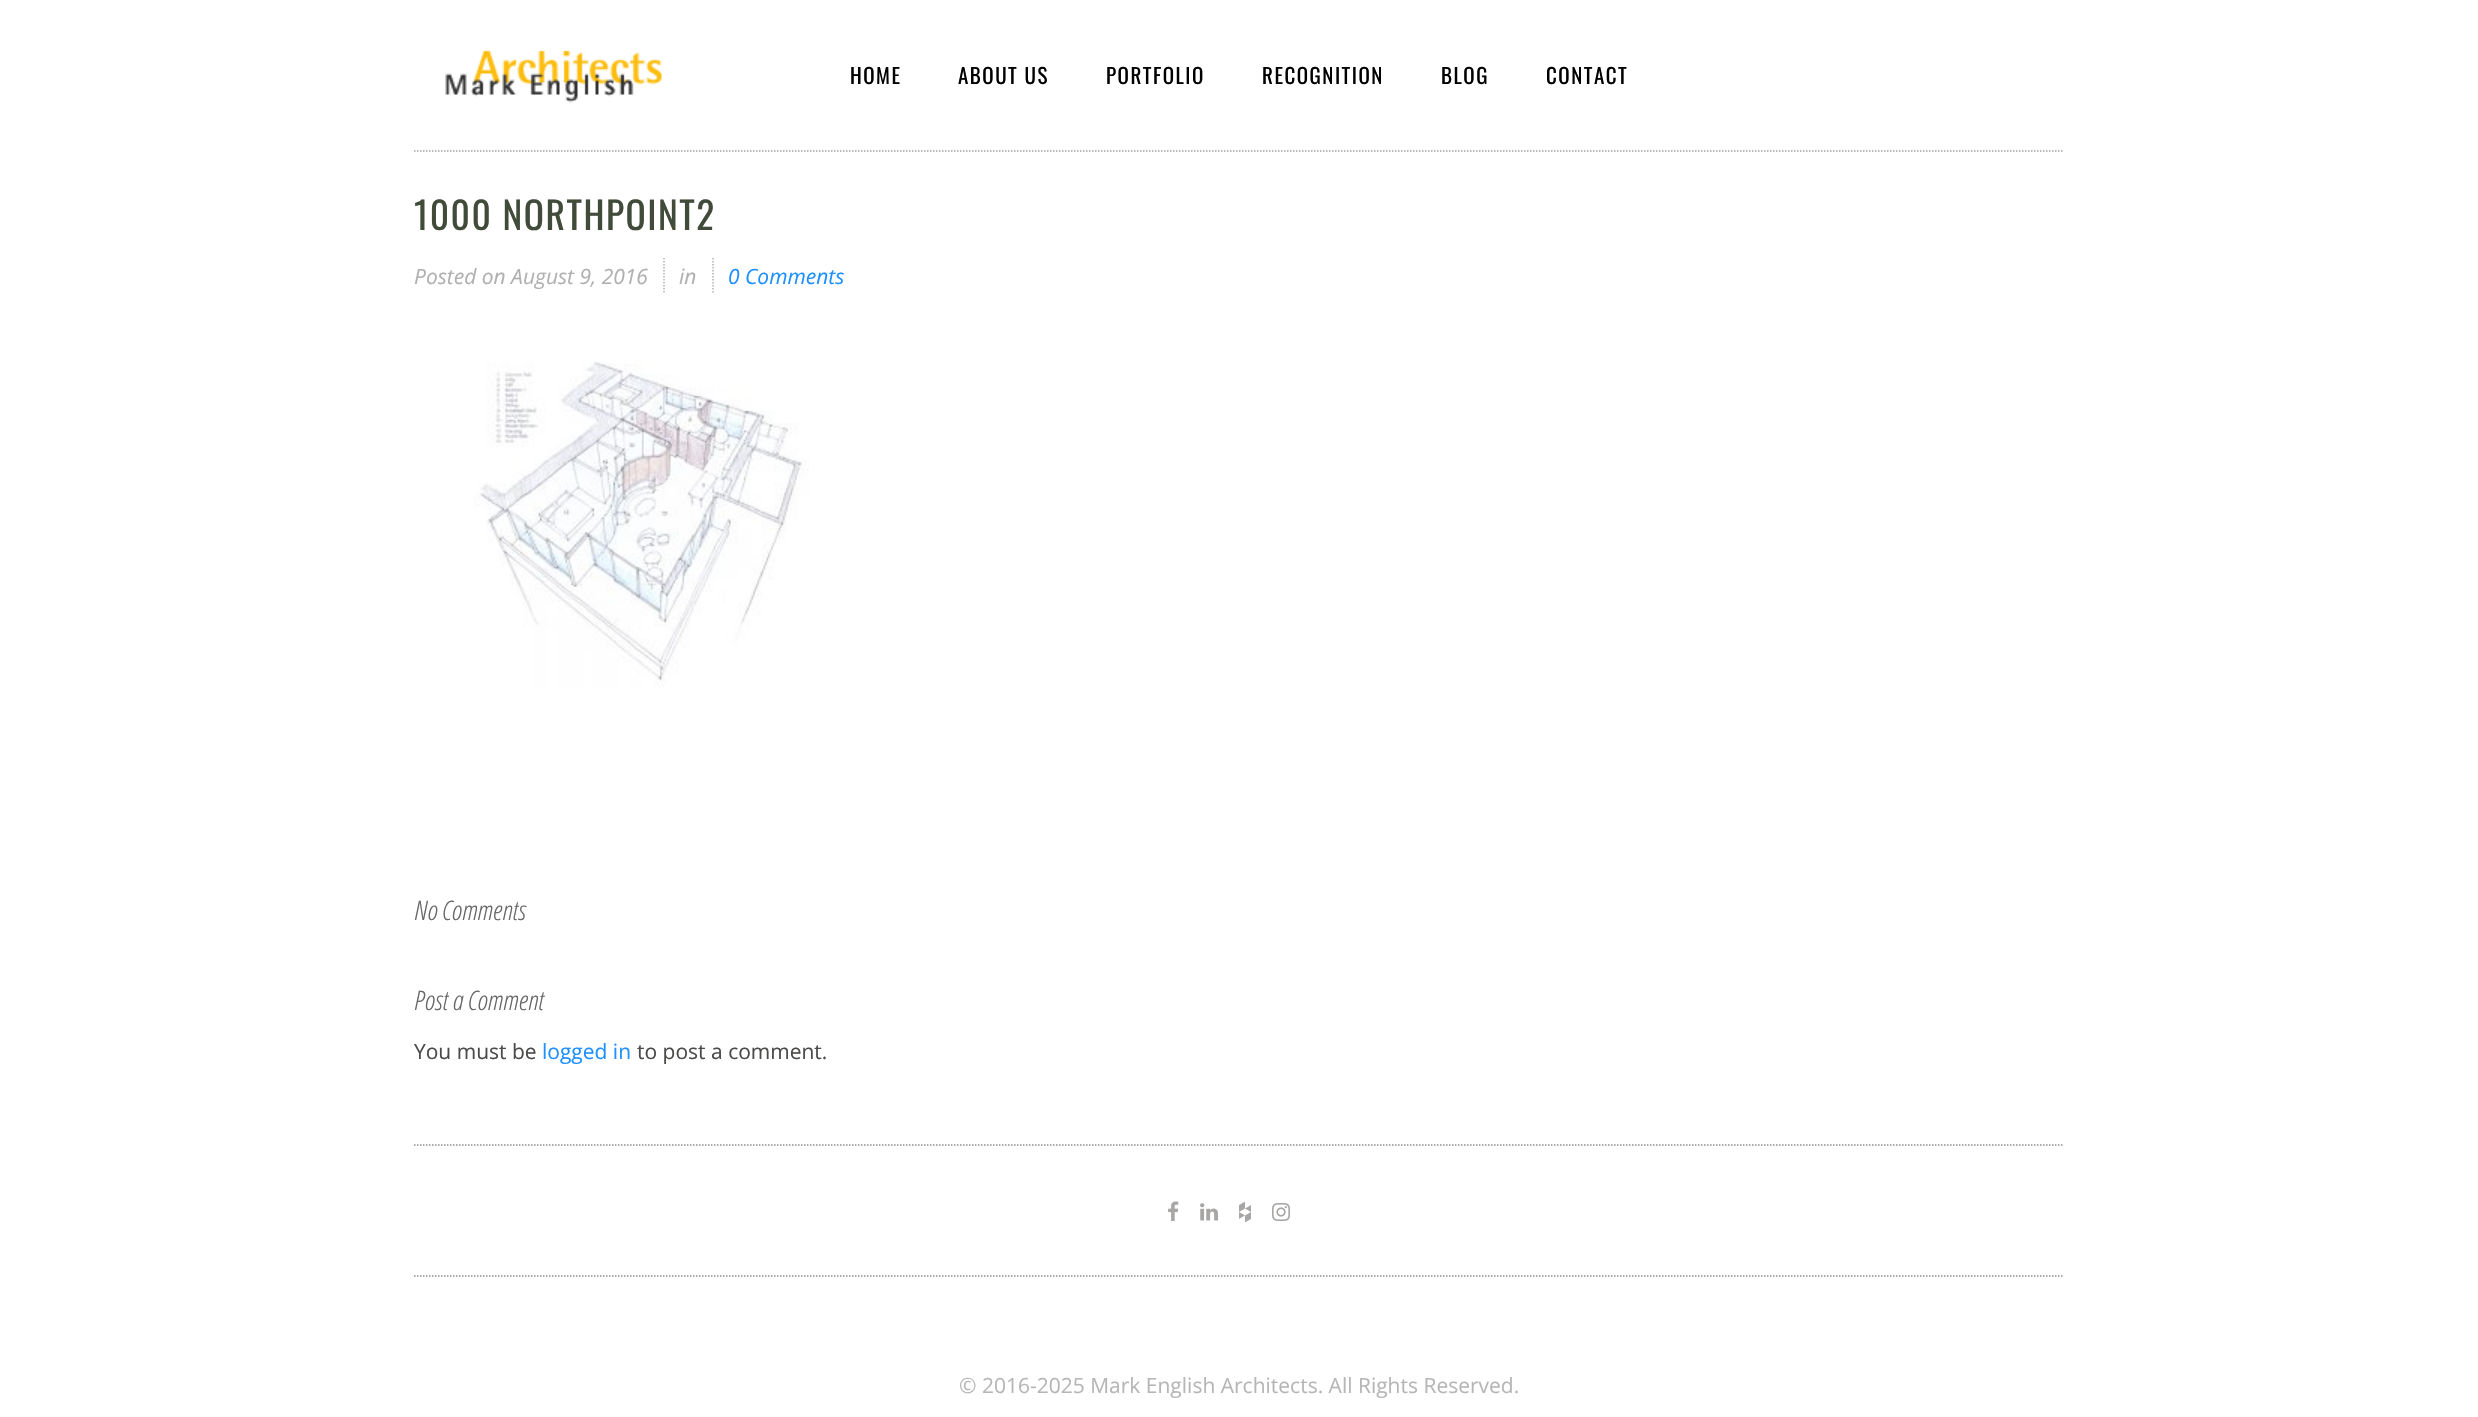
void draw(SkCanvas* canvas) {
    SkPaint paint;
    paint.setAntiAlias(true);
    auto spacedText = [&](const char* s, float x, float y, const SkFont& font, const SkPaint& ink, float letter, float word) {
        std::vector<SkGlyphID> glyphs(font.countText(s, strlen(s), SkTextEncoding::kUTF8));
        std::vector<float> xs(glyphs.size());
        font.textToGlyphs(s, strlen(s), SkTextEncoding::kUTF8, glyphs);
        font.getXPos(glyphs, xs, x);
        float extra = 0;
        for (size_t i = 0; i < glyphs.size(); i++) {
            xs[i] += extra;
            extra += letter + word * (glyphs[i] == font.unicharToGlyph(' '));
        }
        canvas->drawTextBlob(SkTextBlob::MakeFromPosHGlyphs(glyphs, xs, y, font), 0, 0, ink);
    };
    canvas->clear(0xFFFFFFFF);
    canvas->drawImageRect(SkImages::DeferredFromEncodedData(SkData::MakeFromFileName("img1.png")), SkRect::MakeXYWH(445, 50, 217, 53), SkSamplingOptions());
    SkFont font1(fontMgr->matchFamilyStyle("Oswald", SkFontStyle::Normal()), 21);
    font1.setSubpixel(true);
    paint.setColor(0xFF000000);
    spacedText("HOME", 850, 84, font1, paint, 1.5f, 0);
    spacedText("ABOUT US", 958, 84, font1, paint, 1.5f, 0);
    spacedText("PORTFOLIO", 1106, 84, font1, paint, 1.5f, 0);
    spacedText("RECOGNITION", 1262, 84, font1, paint, 1.5f, 0);
    spacedText("BLOG", 1441, 84, font1, paint, 1.5f, 0);
    spacedText("CONTACT", 1546, 84, font1, paint, 1.5f, 0);
    paint.setStyle(SkPaint::kStroke_Style);
    paint.setStrokeWidth(1.5f);
    paint.setColor(0xFFA3A59F);
    paint.setPathEffect(SkDashPathEffect::Make({{1.5f, 1.5f}}, 0));
    canvas->drawPath(SkPathBuilder().moveTo(414, 151).lineTo(2064, 151).detach(), paint);
    paint.setPathEffect(nullptr);
    SkFont font2(fontMgr->matchFamilyStyle("Oswald", SkFontStyle::Normal()), 37.5f);
    font2.setSubpixel(true);
    paint.setStyle(SkPaint::kFill_Style);
    paint.setColor(0xFF414B3A);
    spacedText("1000 NORTHPOINT2", 414, 230, font2, paint, 1.5f, 0);
    paint.setStyle(SkPaint::kStroke_Style);
    paint.setColor(0xFFB1B0B0);
    paint.setPathEffect(SkDashPathEffect::Make({{1.5f, 1.5f}}, 0));
    canvas->drawPath(SkPathBuilder().moveTo(664, 258).lineTo(664, 294).detach(), paint);
    paint.setPathEffect(nullptr);
    SkFont font3(fontMgr->matchFamilyStyle("Open Sans", SkFontStyle::Italic()), 21);
    font3.setSubpixel(true);
    paint.setStyle(SkPaint::kFill_Style);
    canvas->drawString("Posted on August 9, 2016", 414, 284, font3, paint);
    paint.setStyle(SkPaint::kStroke_Style);
    paint.setPathEffect(SkDashPathEffect::Make({{1.5f, 1.5f}}, 0));
    canvas->drawPath(SkPathBuilder().moveTo(713, 258).lineTo(713, 294).detach(), paint);
    paint.setPathEffect(nullptr);
    paint.setStyle(SkPaint::kFill_Style);
    canvas->drawString("in", 679, 284, font3, paint);
    paint.setColor(0xFF1E90FF);
    canvas->drawString("0 Comments", 728, 284, font3, paint);
    canvas->drawImageRect(SkImages::DeferredFromEncodedData(SkData::MakeFromFileName("img2.png")), SkRect::MakeXYWH(474, 361, 336, 326), SkSamplingOptions());
    SkFont font4(fontMgr->matchFamilyStyle("Open Sans Condensed", SkFontStyle(300, SkFontStyle::kNormal_Width, SkFontStyle::kItalic_Slant)), 27);
    font4.setSubpixel(true);
    paint.setColor(0xFF666666);
    canvas->drawString("No Comments", 414, 920, font4, paint);
    canvas->drawString("Post a Comment", 414, 1010, font4, paint);
    SkFont font5(fontMgr->matchFamilyStyle("Open Sans", SkFontStyle::Normal()), 21);
    font5.setSubpixel(true);
    paint.setColor(0xFF4C4B4A);
    canvas->drawString("You must be", 414, 1059, font5, paint);
    paint.setColor(0xFF1E90FF);
    canvas->drawString("logged in", 542, 1059, font5, paint);
    paint.setColor(0xFF4C4B4A);
    canvas->drawString("to post a comment.", 637, 1059, font5, paint);
    paint.setStyle(SkPaint::kStroke_Style);
    paint.setColor(0xFF918A8A);
    paint.setPathEffect(SkDashPathEffect::Make({{1.5f, 1.5f}}, 0));
    canvas->drawPath(SkPathBuilder().moveTo(414, 1145).lineTo(2064, 1145).detach(), paint);
    paint.setPathEffect(nullptr);
    canvas->drawImageRect(SkImages::DeferredFromEncodedData(SkData::MakeFromFileName("img3.png")), SkRect::MakeXYWH(1168, 1201, 11, 20), SkSamplingOptions());
    canvas->drawImageRect(SkImages::DeferredFromEncodedData(SkData::MakeFromFileName("img4.png")), SkRect::MakeXYWH(1200, 1203, 18, 18), SkSamplingOptions());
    canvas->drawImageRect(SkImages::DeferredFromEncodedData(SkData::MakeFromFileName("img5.png")), SkRect::MakeXYWH(1239, 1201, 12, 22), SkSamplingOptions());
    canvas->drawImageRect(SkImages::DeferredFromEncodedData(SkData::MakeFromFileName("img6.png")), SkRect::MakeXYWH(1272, 1203, 18, 18), SkSamplingOptions());
    paint.setPathEffect(SkDashPathEffect::Make({{1.5f, 1.5f}}, 0));
    canvas->drawPath(SkPathBuilder().moveTo(414, 1276).lineTo(2064, 1276).detach(), paint);
    paint.setPathEffect(nullptr);
    paint.setStyle(SkPaint::kFill_Style);
    paint.setColor(0xFFB5B7B5);
    canvas->drawString("© 2016-2025 Mark English Architects. All Rights Reserved.", 959, 1393, font5, paint);
}
